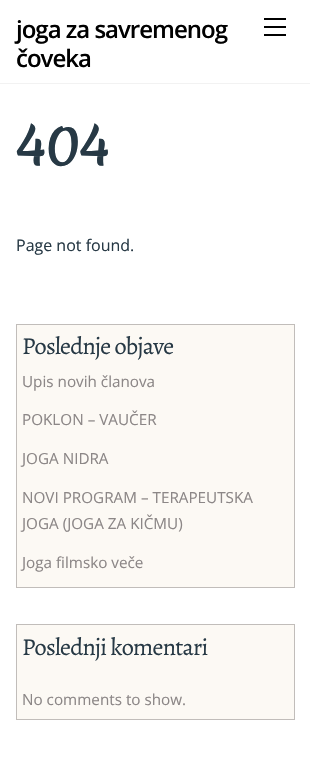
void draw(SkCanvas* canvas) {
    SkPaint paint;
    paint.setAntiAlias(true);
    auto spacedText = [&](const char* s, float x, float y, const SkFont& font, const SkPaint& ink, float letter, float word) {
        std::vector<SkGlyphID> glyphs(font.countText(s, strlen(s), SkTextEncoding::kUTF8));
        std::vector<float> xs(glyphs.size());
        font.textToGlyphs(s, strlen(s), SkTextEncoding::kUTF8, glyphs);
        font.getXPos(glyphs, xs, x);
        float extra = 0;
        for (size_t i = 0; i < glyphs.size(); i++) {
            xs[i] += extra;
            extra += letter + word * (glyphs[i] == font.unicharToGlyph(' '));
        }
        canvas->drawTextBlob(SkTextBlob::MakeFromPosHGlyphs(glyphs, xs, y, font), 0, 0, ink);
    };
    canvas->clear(0xFFFFFFFF);
    paint.setColor(0xFFF2F2F2);
    canvas->drawRect(SkRect::MakeXYWH(0, 83, 310, 1), paint);
    SkFont font1(fontMgr->matchFamilyStyle("Open Sans", SkFontStyle(600, SkFontStyle::kNormal_Width, SkFontStyle::kUpright_Slant)), 24);
    font1.setSubpixel(true);
    paint.setColor(0xFF000000);
    spacedText("joga za savremenog", 16, 38, font1, paint, -1, 0);
    spacedText("čoveka", 16, 67, font1, paint, -1, 0);
    canvas->drawRect(SkRect::MakeXYWH(264, 34, 22, 2), paint);
    canvas->drawRect(SkRect::MakeXYWH(264, 18, 22, 2), paint);
    canvas->drawRect(SkRect::MakeXYWH(264, 26, 22, 2), paint);
    SkFont font2(fontMgr->matchFamilyStyle("Merienda", SkFontStyle(500, SkFontStyle::kNormal_Width, SkFontStyle::kUpright_Slant)), 55);
    font2.setSubpixel(true);
    paint.setColor(0xFF273945);
    spacedText("404", 16, 165, font2, paint, -1.5f, 0);
    SkFont font3(fontMgr->matchFamilyStyle("Open Sans", SkFontStyle::Normal()), 16);
    font3.setSubpixel(true);
    canvas->drawString("Page not found.", 16, 251, font3, paint);
    paint.setColor(0xFFFCF9F4);
    canvas->drawRect(SkRect::MakeXYWH(16.5f, 324.5f, 278, 263), paint);
    paint.setStyle(SkPaint::kStroke_Style);
    paint.setStrokeWidth(1);
    paint.setColor(0xFFC1BDBA);
    canvas->drawRect(SkRect::MakeXYWH(16.5f, 324.5f, 278, 263), paint);
    SkFont font4(fontMgr->matchFamilyStyle("Alegreya", SkFontStyle::Normal()), 24.25f);
    font4.setSubpixel(true);
    paint.setStyle(SkPaint::kFill_Style);
    paint.setColor(0xFF273945);
    spacedText("Poslednje objave", 22, 354, font4, paint, -0.75f, 0);
    SkFont font5(fontMgr->matchFamilyStyle("Open Sans", SkFontStyle::Normal()), 15.25f);
    font5.setSubpixel(true);
    paint.setColor(0xFF8C8787);
    canvas->drawString("Upis novih članova", 22, 387, font5, paint);
    canvas->drawString("POKLON – VAUČER", 22, 425, font5, paint);
    canvas->drawString("JOGA NIDRA", 22, 464, font5, paint);
    canvas->drawString("NOVI PROGRAM – TERAPEUTSKA", 22, 503, font5, paint);
    canvas->drawString("JOGA (JOGA ZA KIČMU)", 22, 529, font5, paint);
    canvas->drawString("Joga filmsko veče", 22, 568, font5, paint);
    paint.setColor(0xFFFCF9F4);
    canvas->drawRect(SkRect::MakeXYWH(16.5f, 624.5f, 278, 95), paint);
    paint.setStyle(SkPaint::kStroke_Style);
    paint.setColor(0xFFC1BDBA);
    canvas->drawRect(SkRect::MakeXYWH(16.5f, 624.5f, 278, 95), paint);
    paint.setStyle(SkPaint::kFill_Style);
    paint.setColor(0xFF273945);
    spacedText("Poslednji komentari", 22, 655, font4, paint, -0.75f, 0);
    paint.setColor(0xFF8C8787);
    canvas->drawString("No comments to show.", 22, 705, font5, paint);
}
